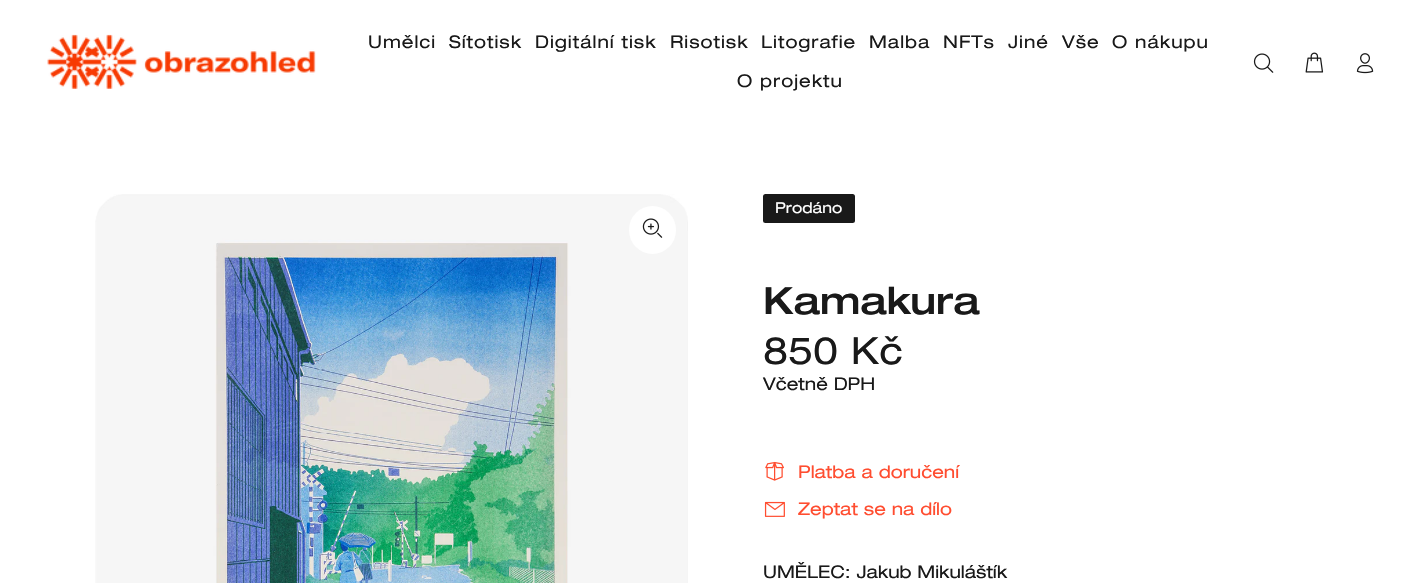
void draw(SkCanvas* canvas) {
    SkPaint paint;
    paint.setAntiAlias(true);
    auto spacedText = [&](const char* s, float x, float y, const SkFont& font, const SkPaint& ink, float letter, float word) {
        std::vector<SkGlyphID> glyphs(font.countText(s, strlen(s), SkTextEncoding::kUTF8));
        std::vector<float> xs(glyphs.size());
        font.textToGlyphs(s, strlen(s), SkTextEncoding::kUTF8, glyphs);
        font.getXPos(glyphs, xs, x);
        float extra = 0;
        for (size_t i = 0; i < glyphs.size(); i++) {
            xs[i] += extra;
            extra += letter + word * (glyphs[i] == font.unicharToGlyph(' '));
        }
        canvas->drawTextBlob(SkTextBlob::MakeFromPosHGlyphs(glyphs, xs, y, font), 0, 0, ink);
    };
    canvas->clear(0xFFFFFFFF);
    canvas->drawImageRect(SkImages::DeferredFromEncodedData(SkData::MakeFromFileName("img1.png")), SkRect::MakeXYWH(47, 34, 269, 55), SkSamplingOptions());
    SkFont font1(fontMgr->matchFamilyStyle("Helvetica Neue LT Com", SkFontStyle::Normal()), 17.5f);
    font1.setSubpixel(true);
    paint.setColor(0xFF191919);
    spacedText("Umělci", 368, 48, font1, paint, 1, 0);
    spacedText("Sítotisk", 449, 48, font1, paint, 1, 0);
    spacedText("Digitální tisk", 535, 48, font1, paint, 1, 0);
    spacedText("Risotisk", 670, 48, font1, paint, 1, 0);
    spacedText("Litografie", 761, 48, font1, paint, 1, 0);
    spacedText("Malba", 869, 48, font1, paint, 1, 0);
    spacedText("NFTs", 943, 48, font1, paint, 1, 0);
    spacedText("Jiné", 1008, 48, font1, paint, 1, 0);
    spacedText("Vše", 1062, 48, font1, paint, 1, 0);
    spacedText("O nákupu", 1112, 48, font1, paint, 1, 0);
    spacedText("O projektu", 737, 87, font1, paint, 1, 0);
    canvas->drawImageRect(SkImages::DeferredFromEncodedData(SkData::MakeFromFileName("img2.png")), SkRect::MakeXYWH(1253, 53, 21, 20), SkSamplingOptions());
    canvas->drawImageRect(SkImages::DeferredFromEncodedData(SkData::MakeFromFileName("img3.png")), SkRect::MakeXYWH(1305, 52, 19, 21), SkSamplingOptions());
    canvas->drawImageRect(SkImages::DeferredFromEncodedData(SkData::MakeFromFileName("img4.png")), SkRect::MakeXYWH(1356, 53, 18, 21), SkSamplingOptions());
    canvas->drawImageRect(SkImages::DeferredFromEncodedData(SkData::MakeFromFileName("img5.png")), SkRect::MakeXYWH(95, 194, 593, 389), SkSamplingOptions());
    paint.setColor(0xFFFFFFFF);
    canvas->drawRoundRect(SkRect::MakeXYWH(629, 206, 47, 48), 23.5f, 23.5f, paint);
    canvas->drawImageRect(SkImages::DeferredFromEncodedData(SkData::MakeFromFileName("img6.png")), SkRect::MakeXYWH(642, 218, 21, 20), SkSamplingOptions());
    paint.setColor(0xFF191919);
    canvas->drawRoundRect(SkRect::MakeXYWH(763, 194, 92, 29), 2.5f, 2.5f, paint);
    SkFont font2(fontMgr->matchFamilyStyle("Helvetica Neue LT Com", SkFontStyle::Normal()), 15);
    font2.setSubpixel(true);
    paint.setColor(0xFFFFFFFF);
    canvas->drawString("Prodáno", 775, 213, font2, paint);
    SkFont font3(fontMgr->matchFamilyStyle("Helvetica Neue LT Com", SkFontStyle(500, SkFontStyle::kNormal_Width, SkFontStyle::kUpright_Slant)), 37.5f);
    font3.setSubpixel(true);
    paint.setColor(0xFF191919);
    canvas->drawString("Kamakura", 763, 314, font3, paint);
    SkFont font4(fontMgr->matchFamilyStyle("Helvetica Neue LT Com", SkFontStyle::Normal()), 37.5f);
    font4.setSubpixel(true);
    canvas->drawString("850 Kč", 763, 364, font4, paint);
    canvas->drawString("Včetně DPH", 763, 390, font1, paint);
    canvas->drawImageRect(SkImages::DeferredFromEncodedData(SkData::MakeFromFileName("img7.png")), SkRect::MakeXYWH(765, 461, 19, 20), SkSamplingOptions());
    paint.setColor(0xFFFF4D30);
    canvas->drawString("Platba a doručení", 798, 478, font1, paint);
    canvas->drawImageRect(SkImages::DeferredFromEncodedData(SkData::MakeFromFileName("img8.png")), SkRect::MakeXYWH(764, 501, 21, 16), SkSamplingOptions());
    canvas->drawString("Zeptat se na dílo", 798, 515, font1, paint);
    paint.setColor(0xFF191919);
    canvas->drawString("UMĚLEC: Jakub Mikuláštík", 763, 578, font1, paint);
}
